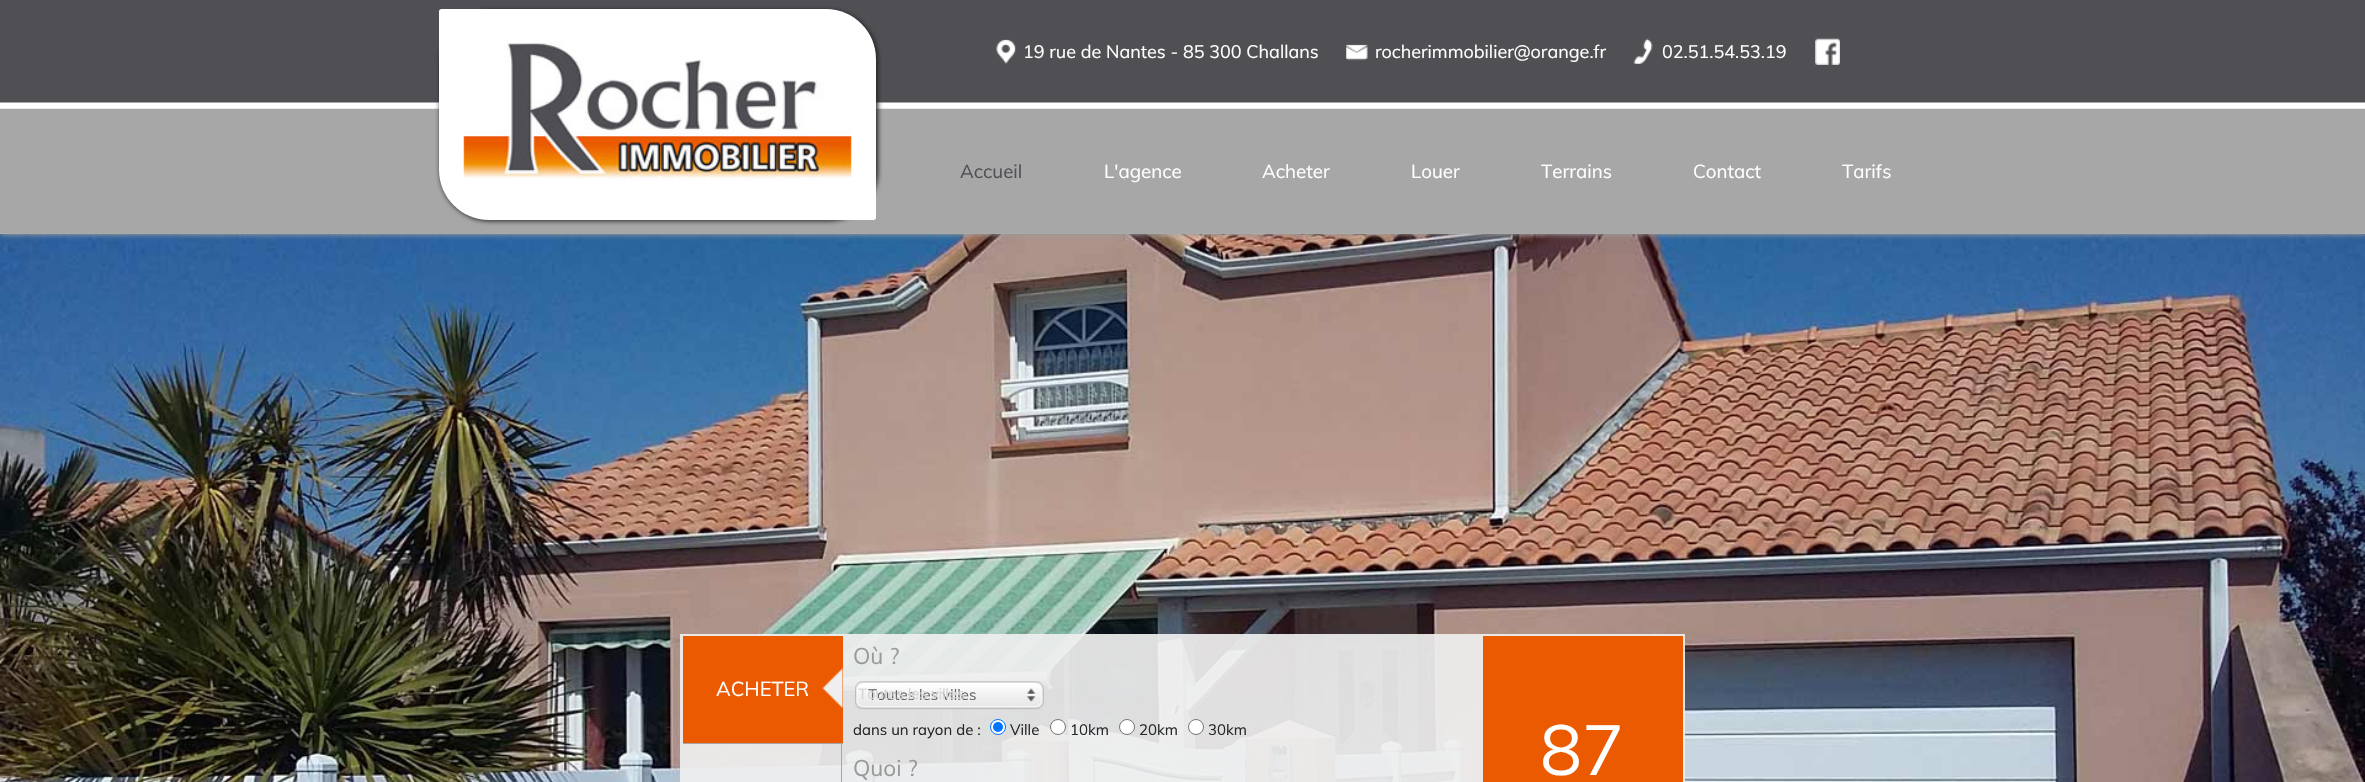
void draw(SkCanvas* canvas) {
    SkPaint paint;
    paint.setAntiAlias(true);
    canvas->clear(0xFFFFFFFF);
    canvas->drawImageRect(SkImages::DeferredFromEncodedData(SkData::MakeFromFileName("img7.png")), SkRect::MakeXYWH(0, 233, 2365, 549), SkSamplingOptions());
    paint.setColor(0xFF999999);
    paint.setMaskFilter(SkMaskFilter::MakeBlur(kNormal_SkBlurStyle, 2.5f));
    canvas->drawRect(SkRect::MakeXYWH(1, 1, 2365, 234), paint);
    paint.setMaskFilter(nullptr);
    canvas->drawImageRect(SkImages::DeferredFromEncodedData(SkData::MakeFromFileName("img1.png")), SkRect::MakeXYWH(0, 0, 2365, 234), SkSamplingOptions());
    paint.setColor(0xFF222222);
    paint.setMaskFilter(SkMaskFilter::MakeBlur(kNormal_SkBlurStyle, 2.5f));
    canvas->drawRoundRect(SkRect::MakeXYWH(440, 10, 438, 211), 50, 50, paint);
    paint.setMaskFilter(nullptr);
    paint.setColor(0xFFFFFFFF);
    canvas->drawPath(SkPathBuilder().moveTo(441.5f, 9).lineTo(826, 9).cubicTo(853.5f, 9, 876, 31.5f, 876, 59).lineTo(876, 217.5f).cubicTo(876, 219, 875, 220, 873.5f, 220).lineTo(489, 220).cubicTo(461.5f, 220, 439, 197.5f, 439, 170).lineTo(439, 11.5f).cubicTo(439, 10, 440, 9, 441.5f, 9).close().detach(), paint);
    canvas->drawImageRect(SkImages::DeferredFromEncodedData(SkData::MakeFromFileName("img2.png")), SkRect::MakeXYWH(463, 40, 389, 140), SkSamplingOptions());
    canvas->drawImageRect(SkImages::DeferredFromEncodedData(SkData::MakeFromFileName("img3.png")), SkRect::MakeXYWH(996, 39, 20, 25), SkSamplingOptions());
    SkFont font1(fontMgr->matchFamilyStyle("Muli", SkFontStyle::Normal()), 18);
    font1.setSubpixel(true);
    canvas->drawString("19 rue de Nantes - 85 300 Challans", 1023, 58, font1, paint);
    canvas->drawImageRect(SkImages::DeferredFromEncodedData(SkData::MakeFromFileName("img4.png")), SkRect::MakeXYWH(1346, 44, 22, 17), SkSamplingOptions());
    canvas->drawString("rocherimmobilier@orange.fr", 1375, 58, font1, paint);
    canvas->drawImageRect(SkImages::DeferredFromEncodedData(SkData::MakeFromFileName("img5.png")), SkRect::MakeXYWH(1633, 38, 20, 26), SkSamplingOptions());
    canvas->drawString("02.51.54.53.19", 1662, 58, font1, paint);
    canvas->drawImageRect(SkImages::DeferredFromEncodedData(SkData::MakeFromFileName("img6.png")), SkRect::MakeXYWH(1815, 38, 25, 27), SkSamplingOptions());
    SkFont font2(fontMgr->matchFamilyStyle("Muli", SkFontStyle::Normal()), 18.75f);
    font2.setSubpixel(true);
    paint.setColor(0xFF504F54);
    canvas->drawString("Accueil", 960, 178, font2, paint);
    paint.setColor(0xFFFFFFFF);
    canvas->drawString("L'agence", 1104, 178, font2, paint);
    canvas->drawString("Acheter", 1262, 178, font2, paint);
    canvas->drawString("Louer", 1411, 178, font2, paint);
    canvas->drawString("Terrains", 1541, 178, font2, paint);
    canvas->drawString("Contact", 1693, 178, font2, paint);
    canvas->drawString("Tarifs", 1842, 178, font2, paint);
    paint.setColor(0xEBEFEFEF);
    canvas->drawRect(SkRect::MakeXYWH(680, 634, 1005, 148), paint);
    paint.setColor(0xFFEB5A01);
    canvas->drawRect(SkRect::MakeXYWH(683, 636, 160, 107), paint);
    canvas->drawImageRect(SkImages::DeferredFromEncodedData(SkData::MakeFromFileName("img8.png")), SkRect::MakeXYWH(822, 668, 21, 40), SkSamplingOptions());
    paint.setColor(0xFFA7A7A7);
    canvas->drawRect(SkRect::MakeXYWH(683, 743, 160, 1), paint);
    SkFont font3(fontMgr->matchFamilyStyle("Muli", SkFontStyle::Normal()), 20);
    font3.setSubpixel(true);
    paint.setColor(0xFFFFFFFF);
    canvas->drawString("ACHETER", 716, 696, font3, paint);
    paint.setColor(0xFFA7A7A7);
    canvas->drawRect(SkRect::MakeXYWH(841, 744, 1, 38), paint);
    SkFont font4(fontMgr->matchFamilyStyle("Muli", SkFontStyle::Normal()), 22.5f);
    font4.setSubpixel(true);
    paint.setColor(0xFF999999);
    canvas->drawString("Où ?", 853, 664, font4, paint);
    canvas->drawImageRect(SkImages::DeferredFromEncodedData(SkData::MakeFromFileName("img9.png")), SkRect::MakeXYWH(855, 681, 10, 29), SkSamplingOptions());
    canvas->drawImageRect(SkImages::DeferredFromEncodedData(SkData::MakeFromFileName("img10.png")), SkRect::MakeXYWH(865, 681, 179, 29), SkSamplingOptions());
    SkFont font5(fontMgr->matchFamilyStyle("Muli", SkFontStyle::Normal()), 15);
    font5.setSubpixel(true);
    paint.setColor(0xFF666666);
    canvas->drawString("Toutes les villes", 868, 700, font5, paint);
    SkFont font6(fontMgr->matchFamilyStyle("Liberation Sans", SkFontStyle::Normal()), 15);
    font6.setSubpixel(true);
    paint.setColor(0xFFD5D5D5);
    canvas->drawString("Toutes les villes", 858, 699, font6, paint);
    paint.setColor(0xFF272829);
    canvas->drawString("dans un rayon de :", 853, 735, font5, paint);
    paint.setColor(0xFFFFFFFF);
    canvas->drawCircle(998, 727, 7.5f, paint);
    paint.setStyle(SkPaint::kStroke_Style);
    paint.setStrokeWidth(1);
    paint.setColor(0xFF0075FF);
    canvas->drawCircle(998, 727, 7.5f, paint);
    paint.setStyle(SkPaint::kFill_Style);
    canvas->drawCircle(998, 727, 5, paint);
    paint.setColor(0xFF272829);
    canvas->drawString("Ville", 1010, 735, font5, paint);
    paint.setColor(0xFFFFFFFF);
    canvas->drawCircle(1058, 727, 7.5f, paint);
    paint.setStyle(SkPaint::kStroke_Style);
    paint.setColor(0xFF767676);
    canvas->drawCircle(1058, 727, 7.5f, paint);
    paint.setStyle(SkPaint::kFill_Style);
    paint.setColor(0xFF272829);
    canvas->drawString("10km", 1070, 735, font5, paint);
    paint.setColor(0xFFFFFFFF);
    canvas->drawCircle(1127, 727, 7.5f, paint);
    paint.setStyle(SkPaint::kStroke_Style);
    paint.setColor(0xFF767676);
    canvas->drawCircle(1127, 727, 7.5f, paint);
    paint.setStyle(SkPaint::kFill_Style);
    paint.setColor(0xFF272829);
    canvas->drawString("20km", 1139, 735, font5, paint);
    paint.setColor(0xFFFFFFFF);
    canvas->drawCircle(1196, 727, 7.5f, paint);
    paint.setStyle(SkPaint::kStroke_Style);
    paint.setColor(0xFF767676);
    canvas->drawCircle(1196, 727, 7.5f, paint);
    paint.setStyle(SkPaint::kFill_Style);
    paint.setColor(0xFF272829);
    canvas->drawString("30km", 1208, 735, font5, paint);
    paint.setColor(0xFF999999);
    canvas->drawString("Quoi ?", 853, 776, font4, paint);
    paint.setColor(0xFFEB5A01);
    canvas->drawRect(SkRect::MakeXYWH(1483, 636, 200, 146), paint);
    SkFont font7(fontMgr->matchFamilyStyle("Muli", SkFontStyle::Normal()), 70);
    font7.setSubpixel(true);
    paint.setColor(0xFFFFFFFF);
    canvas->drawString("87", 1540, 775, font7, paint);
}
